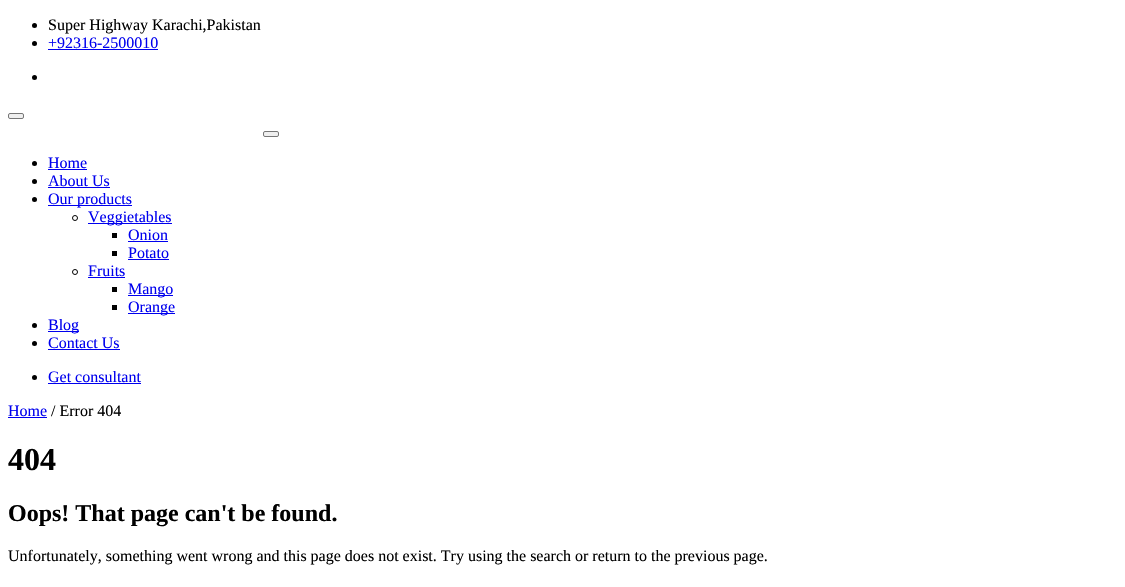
void draw(SkCanvas* canvas) {
    SkPaint paint;
    paint.setAntiAlias(true);
    canvas->clear(0xFFFFFFFF);
    paint.setColor(0xFF000000);
    canvas->drawCircle(34.5f, 25.5f, 2.5f, paint);
    SkFont font1(fontMgr->matchFamilyStyle("Liberation Serif", SkFontStyle::Normal()), 16);
    font1.setSubpixel(true);
    canvas->drawString("Super Highway Karachi,Pakistan", 48, 30, font1, paint);
    canvas->drawCircle(34.5f, 43.5f, 2.5f, paint);
    paint.setColor(0xFF0000EE);
    canvas->drawString("+92316-2500010", 48, 48, font1, paint);
    canvas->drawRect(SkRect::MakeXYWH(48, 49, 110, 1), paint);
    paint.setColor(0xFF000000);
    canvas->drawCircle(34.5f, 77.5f, 2.5f, paint);
    paint.setColor(0xFFEFEFEF);
    canvas->drawRoundRect(SkRect::MakeXYWH(8.5f, 113.5f, 15, 5), 1.5f, 1.5f, paint);
    paint.setStyle(SkPaint::kStroke_Style);
    paint.setStrokeWidth(1);
    paint.setColor(0xFF767676);
    canvas->drawRoundRect(SkRect::MakeXYWH(8.5f, 113.5f, 15, 5), 1.5f, 1.5f, paint);
    paint.setStyle(SkPaint::kFill_Style);
    paint.setColor(0xFFEFEFEF);
    canvas->drawRoundRect(SkRect::MakeXYWH(263.5f, 131.5f, 15, 5), 1.5f, 1.5f, paint);
    paint.setStyle(SkPaint::kStroke_Style);
    paint.setColor(0xFF767676);
    canvas->drawRoundRect(SkRect::MakeXYWH(263.5f, 131.5f, 15, 5), 1.5f, 1.5f, paint);
    paint.setStyle(SkPaint::kFill_Style);
    paint.setColor(0xFF000000);
    canvas->drawCircle(34.5f, 163.5f, 2.5f, paint);
    paint.setColor(0xFF0000EE);
    canvas->drawString("Home", 48, 168, font1, paint);
    canvas->drawRect(SkRect::MakeXYWH(48, 169, 39, 1), paint);
    paint.setColor(0xFF000000);
    canvas->drawCircle(34.5f, 181.5f, 2.5f, paint);
    paint.setColor(0xFF0000EE);
    canvas->drawString("About Us", 48, 186, font1, paint);
    canvas->drawRect(SkRect::MakeXYWH(48, 187, 62, 1), paint);
    paint.setColor(0xFF000000);
    canvas->drawCircle(34.5f, 199.5f, 2.5f, paint);
    paint.setColor(0xFF0000EE);
    canvas->drawRect(SkRect::MakeXYWH(48, 205, 84, 1), paint);
    canvas->drawString("Our products", 48, 204, font1, paint);
    paint.setStyle(SkPaint::kStroke_Style);
    paint.setColor(0xFF000000);
    canvas->drawCircle(75, 218, 2.5f, paint);
    paint.setStyle(SkPaint::kFill_Style);
    paint.setColor(0xFF0000EE);
    canvas->drawRect(SkRect::MakeXYWH(88, 223, 84, 1), paint);
    canvas->drawString("Veggietables", 88, 222, font1, paint);
    paint.setColor(0xFF000000);
    canvas->drawRect(SkRect::MakeXYWH(112, 233, 5, 5), paint);
    paint.setColor(0xFF0000EE);
    canvas->drawString("Onion", 128, 240, font1, paint);
    canvas->drawRect(SkRect::MakeXYWH(128, 241, 40, 1), paint);
    paint.setColor(0xFF000000);
    canvas->drawRect(SkRect::MakeXYWH(112, 251, 5, 5), paint);
    paint.setColor(0xFF0000EE);
    canvas->drawString("Potato", 128, 258, font1, paint);
    canvas->drawRect(SkRect::MakeXYWH(128, 259, 41, 1), paint);
    paint.setStyle(SkPaint::kStroke_Style);
    paint.setColor(0xFF000000);
    canvas->drawCircle(75, 272, 2.5f, paint);
    paint.setStyle(SkPaint::kFill_Style);
    paint.setColor(0xFF0000EE);
    canvas->drawString("Fruits", 88, 276, font1, paint);
    canvas->drawRect(SkRect::MakeXYWH(88, 277, 37, 1), paint);
    paint.setColor(0xFF000000);
    canvas->drawRect(SkRect::MakeXYWH(112, 287, 5, 5), paint);
    paint.setColor(0xFF0000EE);
    canvas->drawRect(SkRect::MakeXYWH(128, 295, 45, 1), paint);
    canvas->drawString("Mango", 128, 294, font1, paint);
    paint.setColor(0xFF000000);
    canvas->drawRect(SkRect::MakeXYWH(112, 305, 5, 5), paint);
    paint.setColor(0xFF0000EE);
    canvas->drawRect(SkRect::MakeXYWH(128, 313, 47, 1), paint);
    canvas->drawString("Orange", 128, 312, font1, paint);
    paint.setColor(0xFF000000);
    canvas->drawCircle(34.5f, 325.5f, 2.5f, paint);
    paint.setColor(0xFF0000EE);
    canvas->drawRect(SkRect::MakeXYWH(48, 331, 31, 1), paint);
    canvas->drawString("Blog", 48, 330, font1, paint);
    paint.setColor(0xFF000000);
    canvas->drawCircle(34.5f, 343.5f, 2.5f, paint);
    paint.setColor(0xFF0000EE);
    canvas->drawString("Contact Us", 48, 348, font1, paint);
    canvas->drawRect(SkRect::MakeXYWH(48, 349, 72, 1), paint);
    paint.setColor(0xFF000000);
    canvas->drawCircle(34.5f, 377.5f, 2.5f, paint);
    paint.setColor(0xFF0000EE);
    canvas->drawString("Get consultant", 48, 382, font1, paint);
    canvas->drawRect(SkRect::MakeXYWH(48, 383, 93, 1), paint);
    canvas->drawString("Home", 8, 416, font1, paint);
    canvas->drawRect(SkRect::MakeXYWH(8, 417, 39, 1), paint);
    paint.setColor(0xFF000000);
    canvas->drawString("/ Error 404", 51, 416, font1, paint);
    SkFont font2(fontMgr->matchFamilyStyle("Liberation Serif", SkFontStyle::Bold()), 32);
    font2.setSubpixel(true);
    canvas->drawString("404", 8, 470, font2, paint);
    SkFont font3(fontMgr->matchFamilyStyle("Liberation Serif", SkFontStyle::Bold()), 24);
    font3.setSubpixel(true);
    canvas->drawString("Oops! That page can't be found.", 8, 521, font3, paint);
    canvas->drawString("Unfortunately, something went wrong and this page does not exist. Try using the search or return to the previous page.", 8, 561, font1, paint);
}
